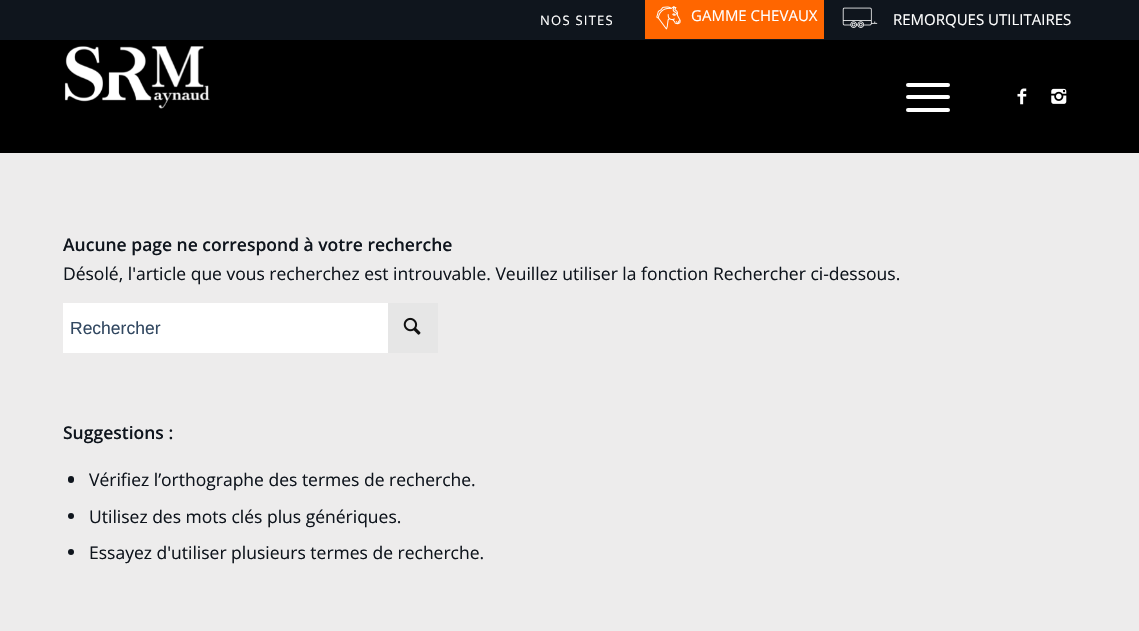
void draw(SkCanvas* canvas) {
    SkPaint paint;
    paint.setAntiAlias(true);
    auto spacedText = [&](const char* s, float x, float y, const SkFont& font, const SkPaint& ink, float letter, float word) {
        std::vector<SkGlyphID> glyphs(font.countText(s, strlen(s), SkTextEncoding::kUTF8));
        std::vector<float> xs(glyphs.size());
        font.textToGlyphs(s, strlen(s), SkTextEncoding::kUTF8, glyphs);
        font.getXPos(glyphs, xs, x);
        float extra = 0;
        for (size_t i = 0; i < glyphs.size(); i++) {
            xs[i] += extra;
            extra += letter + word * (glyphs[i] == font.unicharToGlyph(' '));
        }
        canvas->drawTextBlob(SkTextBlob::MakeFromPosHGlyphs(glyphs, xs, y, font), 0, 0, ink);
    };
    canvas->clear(0xFFEDECEC);
    paint.setColor(0xFF0F151D);
    canvas->drawRect(SkRect::MakeXYWH(0, 0, 1139, 40), paint);
    SkFont font1(fontMgr->matchFamilyStyle("Open Sans", SkFontStyle::Normal()), 13);
    font1.setSubpixel(true);
    paint.setColor(0xFFFFFFFF);
    spacedText("NOS SITES", 540, 25, font1, paint, 1.25f, 0);
    paint.setColor(0xFFFF6600);
    canvas->drawRect(SkRect::MakeXYWH(645, 0, 179, 39), paint);
    canvas->drawImageRect(SkImages::DeferredFromEncodedData(SkData::MakeFromFileName("img1.png")), SkRect::MakeXYWH(656, 6, 25, 24), SkSamplingOptions());
    SkFont font2(fontMgr->matchFamilyStyle("Open Sans", SkFontStyle::Normal()), 15);
    font2.setSubpixel(true);
    paint.setColor(0xFFFFFFFF);
    canvas->drawString("GAMME CHEVAUX", 691, 21, font2, paint);
    canvas->drawImageRect(SkImages::DeferredFromEncodedData(SkData::MakeFromFileName("img2.png")), SkRect::MakeXYWH(842, 7, 36, 21), SkSamplingOptions());
    canvas->drawString("REMORQUES UTILITAIRES", 893, 25, font2, paint);
    paint.setColor(0xFF000000);
    canvas->drawRect(SkRect::MakeXYWH(0, 40, 1139, 113), paint);
    canvas->drawImageRect(SkImages::DeferredFromEncodedData(SkData::MakeFromFileName("img3.png")), SkRect::MakeXYWH(64, 46, 146, 63), SkSamplingOptions());
    paint.setColor(0xFFFFFFFF);
    canvas->drawRoundRect(SkRect::MakeXYWH(906, 95, 44, 4), 2, 2, paint);
    canvas->drawRoundRect(SkRect::MakeXYWH(906, 83, 44, 4), 2, 2, paint);
    canvas->drawRoundRect(SkRect::MakeXYWH(906, 108, 44, 4), 2, 2, paint);
    canvas->drawImageRect(SkImages::DeferredFromEncodedData(SkData::MakeFromFileName("img4.png")), SkRect::MakeXYWH(1017, 88, 10, 17), SkSamplingOptions());
    canvas->drawImageRect(SkImages::DeferredFromEncodedData(SkData::MakeFromFileName("img5.png")), SkRect::MakeXYWH(1051, 88, 16, 16), SkSamplingOptions());
    SkFont font3(fontMgr->matchFamilyStyle("Open Sans", SkFontStyle(600, SkFontStyle::kNormal_Width, SkFontStyle::kUpright_Slant)), 17.5f);
    font3.setSubpixel(true);
    paint.setColor(0xFF0F151D);
    canvas->drawString("Aucune page ne correspond à votre recherche", 63, 251, font3, paint);
    SkFont font4(fontMgr->matchFamilyStyle("Open Sans", SkFontStyle::Normal()), 17.5f);
    font4.setSubpixel(true);
    canvas->drawString("Désolé, l'article que vous recherchez est introuvable. Veuillez utiliser la fonction Rechercher ci-dessous.", 63, 280, font4, paint);
    paint.setColor(0xFFFFFFFF);
    canvas->drawRect(SkRect::MakeXYWH(63, 303, 325, 50), paint);
    SkFont font5(fontMgr->matchFamilyStyle("Liberation Sans", SkFontStyle::Normal()), 17.5f);
    font5.setSubpixel(true);
    paint.setColor(0xFF324861);
    canvas->drawString("Rechercher", 70, 334, font5, paint);
    paint.setColor(0xFFE6E6E6);
    canvas->drawRect(SkRect::MakeXYWH(388, 303, 50, 50), paint);
    canvas->drawImageRect(SkImages::DeferredFromEncodedData(SkData::MakeFromFileName("img6.png")), SkRect::MakeXYWH(403, 317, 18, 18), SkSamplingOptions());
    paint.setColor(0xFF0F151D);
    canvas->drawString("Suggestions :", 63, 439, font3, paint);
    canvas->drawRoundRect(SkRect::MakeXYWH(68, 476, 6, 7), 3, 3, paint);
    canvas->drawString("Vérifiez l’orthographe des termes de recherche.", 89, 486, font4, paint);
    canvas->drawCircle(71, 516, 3, paint);
    canvas->drawString("Utilisez des mots clés plus génériques.", 89, 523, font4, paint);
    canvas->drawCircle(71, 552, 3, paint);
    canvas->drawString("Essayez d'utiliser plusieurs termes de recherche.", 89, 559, font4, paint);
}
